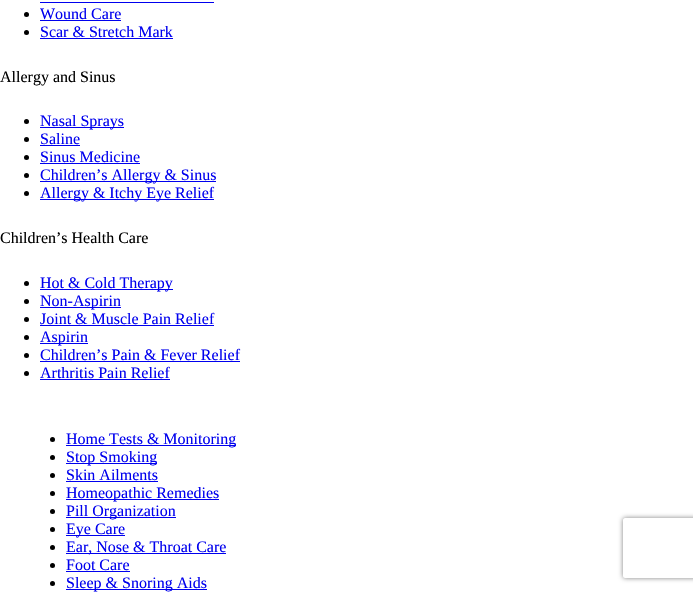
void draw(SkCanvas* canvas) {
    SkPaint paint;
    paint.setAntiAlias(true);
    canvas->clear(0xFFFFFFFF);
    paint.setColor(0xFF0000EE);
    canvas->drawRect(SkRect::MakeXYWH(40, 2, 174, 1), paint);
    paint.setColor(0xFF000000);
    canvas->drawCircle(26.5f, 14.5f, 2.5f, paint);
    SkFont font1(fontMgr->matchFamilyStyle("Liberation Serif", SkFontStyle::Normal()), 16);
    font1.setSubpixel(true);
    paint.setColor(0xFF0000EE);
    canvas->drawString("Wound Care", 40, 19, font1, paint);
    canvas->drawRect(SkRect::MakeXYWH(40, 20, 81, 1), paint);
    paint.setColor(0xFF000000);
    canvas->drawCircle(26.5f, 32.5f, 2.5f, paint);
    paint.setColor(0xFF0000EE);
    canvas->drawString("Scar & Stretch Mark", 40, 37, font1, paint);
    canvas->drawRect(SkRect::MakeXYWH(40, 38, 133, 1), paint);
    paint.setColor(0xFF000000);
    canvas->drawString("Allergy and Sinus", 0, 82, font1, paint);
    canvas->drawCircle(26.5f, 121.5f, 2.5f, paint);
    paint.setColor(0xFF0000EE);
    canvas->drawRect(SkRect::MakeXYWH(40, 127, 84, 1), paint);
    canvas->drawString("Nasal Sprays", 40, 126, font1, paint);
    paint.setColor(0xFF000000);
    canvas->drawCircle(26.5f, 139.5f, 2.5f, paint);
    paint.setColor(0xFF0000EE);
    canvas->drawString("Saline", 40, 144, font1, paint);
    canvas->drawRect(SkRect::MakeXYWH(40, 145, 40, 1), paint);
    paint.setColor(0xFF000000);
    canvas->drawCircle(26.5f, 157.5f, 2.5f, paint);
    paint.setColor(0xFF0000EE);
    canvas->drawString("Sinus Medicine", 40, 162, font1, paint);
    canvas->drawRect(SkRect::MakeXYWH(40, 163, 100, 1), paint);
    paint.setColor(0xFF000000);
    canvas->drawCircle(26.5f, 175.5f, 2.5f, paint);
    paint.setColor(0xFF0000EE);
    canvas->drawRect(SkRect::MakeXYWH(40, 181, 176, 1), paint);
    canvas->drawString("Children’s Allergy & Sinus", 40, 180, font1, paint);
    paint.setColor(0xFF000000);
    canvas->drawCircle(26.5f, 193.5f, 2.5f, paint);
    paint.setColor(0xFF0000EE);
    canvas->drawRect(SkRect::MakeXYWH(40, 199, 174, 1), paint);
    canvas->drawString("Allergy & Itchy Eye Relief", 40, 198, font1, paint);
    paint.setColor(0xFF000000);
    canvas->drawString("Children’s Health Care", 0, 243, font1, paint);
    canvas->drawCircle(26.5f, 283.5f, 2.5f, paint);
    paint.setColor(0xFF0000EE);
    canvas->drawRect(SkRect::MakeXYWH(40, 289, 133, 1), paint);
    canvas->drawString("Hot & Cold Therapy", 40, 288, font1, paint);
    paint.setColor(0xFF000000);
    canvas->drawCircle(26.5f, 301.5f, 2.5f, paint);
    paint.setColor(0xFF0000EE);
    canvas->drawRect(SkRect::MakeXYWH(40, 307, 81, 1), paint);
    canvas->drawString("Non-Aspirin", 40, 306, font1, paint);
    paint.setColor(0xFF000000);
    canvas->drawCircle(26.5f, 319.5f, 2.5f, paint);
    paint.setColor(0xFF0000EE);
    canvas->drawString("Joint & Muscle Pain Relief", 40, 324, font1, paint);
    canvas->drawRect(SkRect::MakeXYWH(40, 325, 174, 1), paint);
    paint.setColor(0xFF000000);
    canvas->drawCircle(26.5f, 337.5f, 2.5f, paint);
    paint.setColor(0xFF0000EE);
    canvas->drawRect(SkRect::MakeXYWH(40, 343, 48, 1), paint);
    canvas->drawString("Aspirin", 40, 342, font1, paint);
    paint.setColor(0xFF000000);
    canvas->drawCircle(26.5f, 355.5f, 2.5f, paint);
    paint.setColor(0xFF0000EE);
    canvas->drawString("Children’s Pain & Fever Relief", 40, 360, font1, paint);
    canvas->drawRect(SkRect::MakeXYWH(40, 361, 200, 1), paint);
    paint.setColor(0xFF000000);
    canvas->drawCircle(26.5f, 373.5f, 2.5f, paint);
    paint.setColor(0xFF0000EE);
    canvas->drawString("Arthritis Pain Relief", 40, 378, font1, paint);
    canvas->drawRect(SkRect::MakeXYWH(40, 379, 130, 1), paint);
    paint.setColor(0xFF000000);
    canvas->drawCircle(52.5f, 439.5f, 2.5f, paint);
    paint.setColor(0xFF0000EE);
    canvas->drawRect(SkRect::MakeXYWH(66, 445, 170, 1), paint);
    canvas->drawString("Home Tests & Monitoring", 66, 444, font1, paint);
    paint.setColor(0xFF000000);
    canvas->drawCircle(52.5f, 457.5f, 2.5f, paint);
    paint.setColor(0xFF0000EE);
    canvas->drawRect(SkRect::MakeXYWH(66, 463, 91, 1), paint);
    canvas->drawString("Stop Smoking", 66, 462, font1, paint);
    paint.setColor(0xFF000000);
    canvas->drawCircle(52.5f, 475.5f, 2.5f, paint);
    paint.setColor(0xFF0000EE);
    canvas->drawString("Skin Ailments", 66, 480, font1, paint);
    canvas->drawRect(SkRect::MakeXYWH(66, 481, 92, 1), paint);
    paint.setColor(0xFF000000);
    canvas->drawCircle(52.5f, 493.5f, 2.5f, paint);
    paint.setColor(0xFF0000EE);
    canvas->drawRect(SkRect::MakeXYWH(66, 499, 153, 1), paint);
    canvas->drawString("Homeopathic Remedies", 66, 498, font1, paint);
    paint.setColor(0xFF000000);
    canvas->drawCircle(52.5f, 511.5f, 2.5f, paint);
    paint.setColor(0xFF0000EE);
    canvas->drawRect(SkRect::MakeXYWH(66, 517, 110, 1), paint);
    canvas->drawString("Pill Organization", 66, 516, font1, paint);
    paint.setColor(0xFF000000);
    canvas->drawCircle(52.5f, 529.5f, 2.5f, paint);
    paint.setColor(0xFF0000EE);
    canvas->drawRect(SkRect::MakeXYWH(66, 535, 59, 1), paint);
    canvas->drawString("Eye Care", 66, 534, font1, paint);
    paint.setColor(0xFF000000);
    canvas->drawCircle(52.5f, 547.5f, 2.5f, paint);
    paint.setColor(0xFF0000EE);
    canvas->drawRect(SkRect::MakeXYWH(66, 553, 160, 1), paint);
    canvas->drawString("Ear, Nose & Throat Care", 66, 552, font1, paint);
    paint.setColor(0xFF000000);
    canvas->drawCircle(52.5f, 565.5f, 2.5f, paint);
    paint.setColor(0xFF0000EE);
    canvas->drawString("Foot Care", 66, 570, font1, paint);
    canvas->drawRect(SkRect::MakeXYWH(66, 571, 64, 1), paint);
    paint.setColor(0xFF000000);
    canvas->drawCircle(52.5f, 583.5f, 2.5f, paint);
    paint.setColor(0xFF0000EE);
    canvas->drawRect(SkRect::MakeXYWH(66, 589, 141, 1), paint);
    canvas->drawString("Sleep & Snoring Aids", 66, 588, font1, paint);
    canvas->save();
    canvas->clipPath(SkPathBuilder(SkPathFillType::kEvenOdd).moveTo(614, 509).lineTo(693, 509).lineTo(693, 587).lineTo(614, 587).close().moveTo(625, 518).lineTo(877, 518).cubicTo(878, 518, 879, 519, 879, 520).lineTo(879, 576).cubicTo(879, 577, 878, 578, 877, 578).lineTo(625, 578).cubicTo(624, 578, 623, 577, 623, 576).lineTo(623, 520).cubicTo(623, 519, 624, 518, 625, 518).close().detach(), true);
    paint.setColor(0xFF808080);
    paint.setMaskFilter(SkMaskFilter::MakeBlur(kNormal_SkBlurStyle, 2.5f));
    canvas->drawRoundRect(SkRect::MakeXYWH(623, 518, 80, 60), 2, 2, paint);
    paint.setMaskFilter(nullptr);
    canvas->restore();
}
